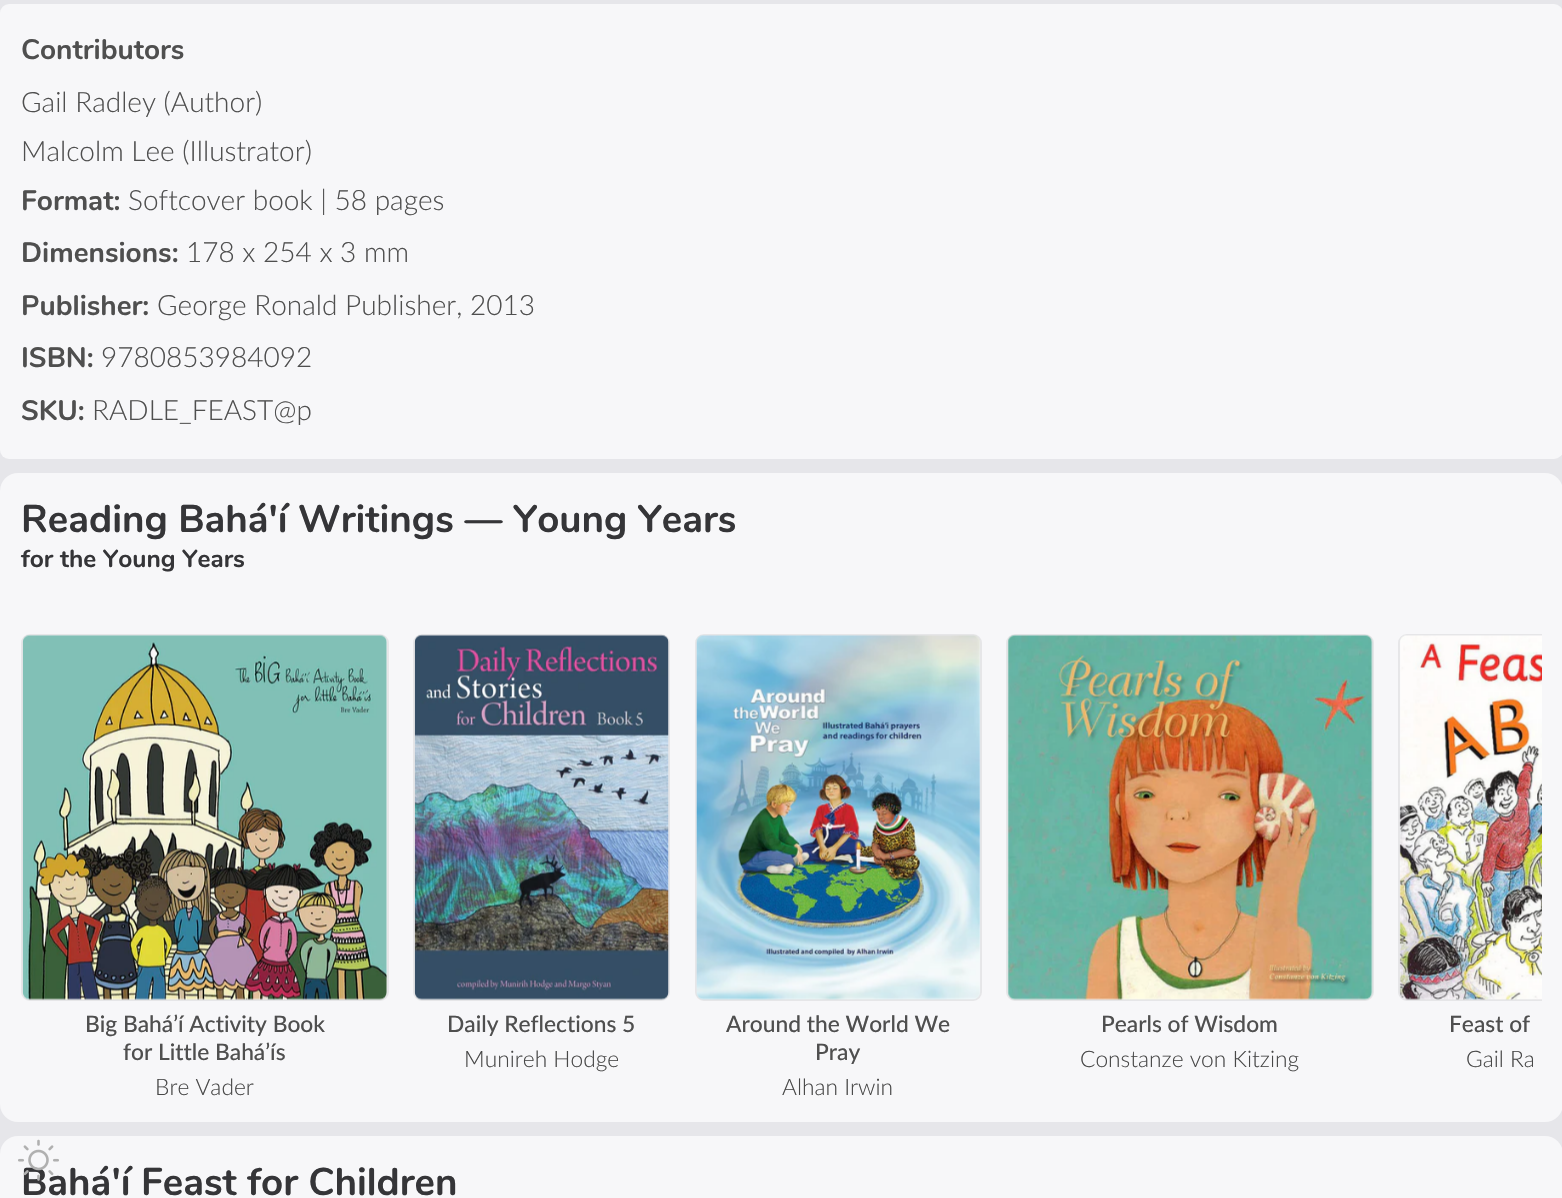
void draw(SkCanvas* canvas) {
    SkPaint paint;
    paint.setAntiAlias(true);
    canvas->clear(0xFFE6E6EA);
    paint.setColor(0xFFF7F7F9);
    canvas->drawRoundRect(SkRect::MakeXYWH(0, 4, 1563, 455), 9, 9, paint);
    SkFont font1(fontMgr->matchFamilyStyle("Nunito", SkFontStyle::Bold()), 28);
    font1.setSubpixel(true);
    paint.setColor(0xFF4F4F4F);
    canvas->drawString("Contributors", 21, 59, font1, paint);
    SkFont font2(fontMgr->matchFamilyStyle("Lato", SkFontStyle(300, SkFontStyle::kNormal_Width, SkFontStyle::kUpright_Slant)), 28);
    font2.setSubpixel(true);
    canvas->drawString("Gail Radley (Author)", 21, 112, font2, paint);
    canvas->drawString("Malcolm Lee (Illustrator)", 21, 161, font2, paint);
    canvas->drawString("Format:", 21, 210, font1, paint);
    canvas->drawString("Softcover book | 58 pages", 128, 210, font2, paint);
    canvas->drawString("Dimensions:", 21, 262, font1, paint);
    canvas->drawString("178 x 254 x 3 mm", 186, 262, font2, paint);
    canvas->drawString("Publisher:", 21, 315, font1, paint);
    canvas->drawString("George Ronald Publisher, 2013", 157, 315, font2, paint);
    canvas->drawString("ISBN:", 21, 367, font1, paint);
    canvas->drawString("9780853984092", 101, 367, font2, paint);
    canvas->drawString("SKU:", 21, 420, font1, paint);
    canvas->drawString("RADLE_FEAST@p", 92, 420, font2, paint);
    paint.setColor(0xFFF7F7F9);
    canvas->drawRoundRect(SkRect::MakeXYWH(0, 473, 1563, 649), 18, 18, paint);
    SkFont font3(fontMgr->matchFamilyStyle("Nunito", SkFontStyle::Bold()), 38.5f);
    font3.setSubpixel(true);
    paint.setColor(0xFF353538);
    canvas->drawString("Reading Bahá'í Writings — Young Years", 21, 532, font3, paint);
    SkFont font4(fontMgr->matchFamilyStyle("Nunito", SkFontStyle::Bold()), 24.5f);
    font4.setSubpixel(true);
    canvas->drawString("for the Young Years", 21, 567, font4, paint);
    paint.setStyle(SkPaint::kStroke_Style);
    paint.setStrokeWidth(2);
    paint.setColor(0xFFE6E6E8);
    canvas->drawRoundRect(SkRect::MakeXYWH(22, 635, 366, 365), 8, 8, paint);
    canvas->drawImageRect(SkImages::DeferredFromEncodedData(SkData::MakeFromFileName("img1.png")), SkRect::MakeXYWH(22, 635, 365, 365), SkSamplingOptions());
    SkFont font5(fontMgr->matchFamilyStyle("Lato", SkFontStyle(500, SkFontStyle::kNormal_Width, SkFontStyle::kUpright_Slant)), 22.75f);
    font5.setSubpixel(true);
    paint.setStyle(SkPaint::kFill_Style);
    paint.setColor(0xFF4F4F4F);
    canvas->drawString("Big Bahá’í Activity Book", 85, 1032, font5, paint);
    canvas->drawString("for Little Bahá’ís", 123, 1060, font5, paint);
    SkFont font6(fontMgr->matchFamilyStyle("Lato", SkFontStyle(300, SkFontStyle::kNormal_Width, SkFontStyle::kUpright_Slant)), 22.75f);
    font6.setSubpixel(true);
    paint.setColor(0xFF484848);
    canvas->drawString("Bre Vader", 155, 1095, font6, paint);
    paint.setStyle(SkPaint::kStroke_Style);
    paint.setColor(0xFFE6E6E8);
    canvas->drawRoundRect(SkRect::MakeXYWH(414, 635, 255, 365), 8, 8, paint);
    canvas->drawImageRect(SkImages::DeferredFromEncodedData(SkData::MakeFromFileName("img2.png")), SkRect::MakeXYWH(414, 634, 255, 366), SkSamplingOptions());
    paint.setStyle(SkPaint::kFill_Style);
    paint.setColor(0xFF4F4F4F);
    canvas->drawString("Daily Reflections 5", 447, 1032, font5, paint);
    paint.setColor(0xFF484848);
    canvas->drawString("Munireh Hodge", 464, 1067, font6, paint);
    paint.setStyle(SkPaint::kStroke_Style);
    paint.setColor(0xFFE6E6E8);
    canvas->drawRoundRect(SkRect::MakeXYWH(696, 635, 285, 365), 8, 8, paint);
    canvas->drawImageRect(SkImages::DeferredFromEncodedData(SkData::MakeFromFileName("img3.png")), SkRect::MakeXYWH(696, 635, 285, 365), SkSamplingOptions());
    paint.setStyle(SkPaint::kFill_Style);
    paint.setColor(0xFF4F4F4F);
    canvas->drawString("Around the World We", 726, 1032, font5, paint);
    canvas->drawString("Pray", 815, 1060, font5, paint);
    paint.setColor(0xFF484848);
    canvas->drawString("Alhan Irwin", 782, 1095, font6, paint);
    paint.setStyle(SkPaint::kStroke_Style);
    paint.setColor(0xFFE6E6E8);
    canvas->drawRoundRect(SkRect::MakeXYWH(1007, 635, 366, 365), 8, 8, paint);
    canvas->drawImageRect(SkImages::DeferredFromEncodedData(SkData::MakeFromFileName("img4.png")), SkRect::MakeXYWH(1007, 634, 366, 366), SkSamplingOptions());
    paint.setStyle(SkPaint::kFill_Style);
    paint.setColor(0xFF4F4F4F);
    canvas->drawString("Pearls of Wisdom", 1101, 1032, font5, paint);
    paint.setColor(0xFF484848);
    canvas->drawString("Constanze von Kitzing", 1080, 1067, font6, paint);
    canvas->save();
    canvas->clipRect(SkRect::MakeXYWH(1398, 634, 144, 367));
    paint.setStyle(SkPaint::kStroke_Style);
    paint.setColor(0xFFE6E6E8);
    canvas->drawRoundRect(SkRect::MakeXYWH(1399, 635, 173, 365), 8, 8, paint);
    canvas->restore();
    canvas->drawImageRect(SkImages::DeferredFromEncodedData(SkData::MakeFromFileName("img5.png")), SkRect::MakeXYWH(1399, 635, 143, 365), SkSamplingOptions());
    paint.setStyle(SkPaint::kFill_Style);
    paint.setColor(0xFF4F4F4F);
    canvas->drawString("Feast of", 1449, 1032, font5, paint);
    paint.setColor(0xFF484848);
    canvas->drawString("Gail Ra", 1466, 1067, font6, paint);
    paint.setColor(0xFFF7F7F9);
    canvas->drawRoundRect(SkRect::MakeXYWH(0, 1136, 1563, 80), 18, 18, paint);
    paint.setColor(0xFF353538);
    canvas->drawString("Bahá'í Feast for Children", 21, 1195, font3, paint);
    canvas->drawImageRect(SkImages::DeferredFromEncodedData(SkData::MakeFromFileName("img6.png")), SkRect::MakeXYWH(18, 1139, 41, 42), SkSamplingOptions());
}
